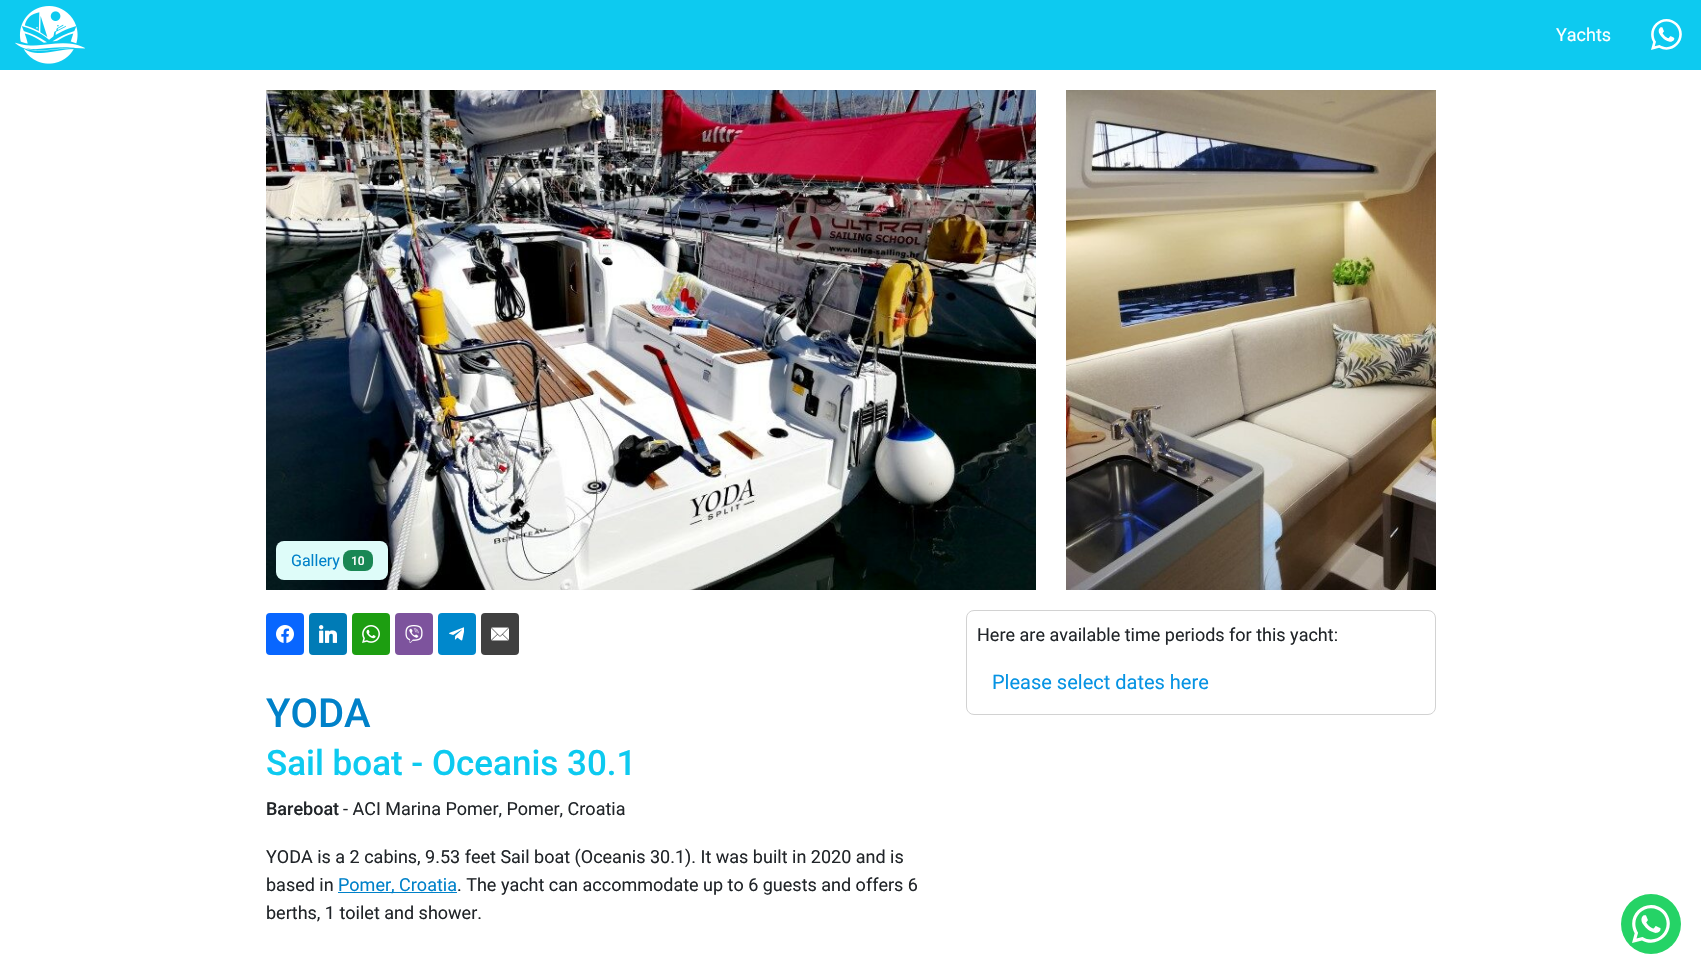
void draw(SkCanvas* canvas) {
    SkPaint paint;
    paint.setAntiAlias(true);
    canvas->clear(0xFFFFFFFF);
    paint.setColor(0xFF0DCAF0);
    canvas->drawRect(SkRect::MakeXYWH(0, 0, 1701, 70), paint);
    canvas->drawImageRect(SkImages::DeferredFromEncodedData(SkData::MakeFromFileName("img1.png")), SkRect::MakeXYWH(15, 6, 70, 58), SkSamplingOptions());
    SkFont font1(fontMgr->matchFamilyStyle("Roboto", SkFontStyle::Normal()), 18);
    font1.setSubpixel(true);
    paint.setColor(0xFFFFFFFF);
    canvas->drawString("Yachts", 1556, 41, font1, paint);
    canvas->drawImageRect(SkImages::DeferredFromEncodedData(SkData::MakeFromFileName("img2.png")), SkRect::MakeXYWH(1651, 19, 31, 31), SkSamplingOptions());
    canvas->drawImageRect(SkImages::DeferredFromEncodedData(SkData::MakeFromFileName("img3.png")), SkRect::MakeXYWH(266, 90, 770, 500), SkSamplingOptions());
    paint.setColor(0xFFDEFCF9);
    canvas->drawRoundRect(SkRect::MakeXYWH(276, 541, 112, 39), 8, 8, paint);
    SkFont font2(fontMgr->matchFamilyStyle("Roboto", SkFontStyle::Normal()), 16);
    font2.setSubpixel(true);
    paint.setColor(0xFF0081C9);
    canvas->drawString("Gallery", 291, 566, font2, paint);
    paint.setColor(0xFF198754);
    canvas->drawRoundRect(SkRect::MakeXYWH(343, 550, 30, 21), 8, 8, paint);
    SkFont font3(fontMgr->matchFamilyStyle("Roboto", SkFontStyle(500, SkFontStyle::kNormal_Width, SkFontStyle::kUpright_Slant)), 12);
    font3.setSubpixel(true);
    paint.setColor(0xFFFFFFFF);
    canvas->drawString("10", 351, 565, font3, paint);
    canvas->drawImageRect(SkImages::DeferredFromEncodedData(SkData::MakeFromFileName("img4.png")), SkRect::MakeXYWH(1066, 90, 370, 500), SkSamplingOptions());
    paint.setStyle(SkPaint::kStroke_Style);
    paint.setStrokeWidth(1);
    paint.setColor(0xFFD2D2D2);
    canvas->drawRoundRect(SkRect::MakeXYWH(966.5f, 610.5f, 469, 104), 7.5f, 7.5f, paint);
    paint.setStyle(SkPaint::kFill_Style);
    paint.setColor(0xFF212529);
    canvas->drawString("Here are available time periods for this yacht:", 977, 641, font1, paint);
    SkFont font4(fontMgr->matchFamilyStyle("Roboto", SkFontStyle::Normal()), 20);
    font4.setSubpixel(true);
    paint.setColor(0xFF0693E3);
    canvas->drawString("Please select dates here", 992, 689, font4, paint);
    paint.setColor(0xFF0866FF);
    canvas->drawRoundRect(SkRect::MakeXYWH(266, 613, 38, 42), 4, 4, paint);
    canvas->drawImageRect(SkImages::DeferredFromEncodedData(SkData::MakeFromFileName("img5.png")), SkRect::MakeXYWH(276, 625, 18, 18), SkSamplingOptions());
    paint.setColor(0xFF007BB6);
    canvas->drawRoundRect(SkRect::MakeXYWH(309, 613, 38, 42), 4, 4, paint);
    canvas->drawImageRect(SkImages::DeferredFromEncodedData(SkData::MakeFromFileName("img6.png")), SkRect::MakeXYWH(319, 625, 18, 18), SkSamplingOptions());
    paint.setColor(0xFF1D9E11);
    canvas->drawRoundRect(SkRect::MakeXYWH(352, 613, 38, 42), 4, 4, paint);
    canvas->drawImageRect(SkImages::DeferredFromEncodedData(SkData::MakeFromFileName("img7.png")), SkRect::MakeXYWH(362, 625, 18, 18), SkSamplingOptions());
    paint.setColor(0xFF7D539D);
    canvas->drawRoundRect(SkRect::MakeXYWH(395, 613, 38, 42), 4, 4, paint);
    canvas->drawImageRect(SkImages::DeferredFromEncodedData(SkData::MakeFromFileName("img8.png")), SkRect::MakeXYWH(405, 625, 18, 18), SkSamplingOptions());
    paint.setColor(0xFF0088CC);
    canvas->drawRoundRect(SkRect::MakeXYWH(438, 613, 38, 42), 4, 4, paint);
    canvas->drawImageRect(SkImages::DeferredFromEncodedData(SkData::MakeFromFileName("img9.png")), SkRect::MakeXYWH(449, 627, 15, 14), SkSamplingOptions());
    paint.setColor(0xFF404040);
    canvas->drawRoundRect(SkRect::MakeXYWH(481, 613, 38, 42), 4, 4, paint);
    canvas->drawImageRect(SkImages::DeferredFromEncodedData(SkData::MakeFromFileName("img10.png")), SkRect::MakeXYWH(491, 627, 18, 14), SkSamplingOptions());
    SkFont font5(fontMgr->matchFamilyStyle("Roboto", SkFontStyle(500, SkFontStyle::kNormal_Width, SkFontStyle::kUpright_Slant)), 40);
    font5.setSubpixel(true);
    paint.setColor(0xFF0081C9);
    canvas->drawString("YODA", 266, 727, font5, paint);
    SkFont font6(fontMgr->matchFamilyStyle("Roboto", SkFontStyle(500, SkFontStyle::kNormal_Width, SkFontStyle::kUpright_Slant)), 35);
    font6.setSubpixel(true);
    paint.setColor(0xFF0DCAF0);
    canvas->drawString("Sail boat - Oceanis 30.1", 266, 775, font6, paint);
    SkFont font7(fontMgr->matchFamilyStyle("Roboto", SkFontStyle(500, SkFontStyle::kNormal_Width, SkFontStyle::kUpright_Slant)), 18);
    font7.setSubpixel(true);
    paint.setColor(0xFF212529);
    canvas->drawString("Bareboat", 266, 815, font7, paint);
    canvas->drawString("- ACI Marina Pomer, Pomer, Croatia", 343, 815, font1, paint);
    canvas->drawString("YODA is a 2 cabins, 9.53 feet Sail boat (Oceanis 30.1). It was built in 2020 and is", 266, 863, font1, paint);
    canvas->drawString("based in", 266, 891, font1, paint);
    paint.setColor(0xFF0081C9);
    canvas->drawRect(SkRect::MakeXYWH(338, 892, 119, 1), paint);
    canvas->drawString("Pomer, Croatia", 338, 891, font1, paint);
    paint.setColor(0xFF212529);
    canvas->drawString(". The yacht can accommodate up to 6 guests and offers 6", 457, 891, font1, paint);
    canvas->drawString("berths, 1 toilet and shower.", 266, 919, font1, paint);
    paint.setColor(0xFF25D366);
    canvas->drawCircle(1651, 924, 30, paint);
    canvas->drawImageRect(SkImages::DeferredFromEncodedData(SkData::MakeFromFileName("img11.png")), SkRect::MakeXYWH(1632, 905, 38, 38), SkSamplingOptions());
}
